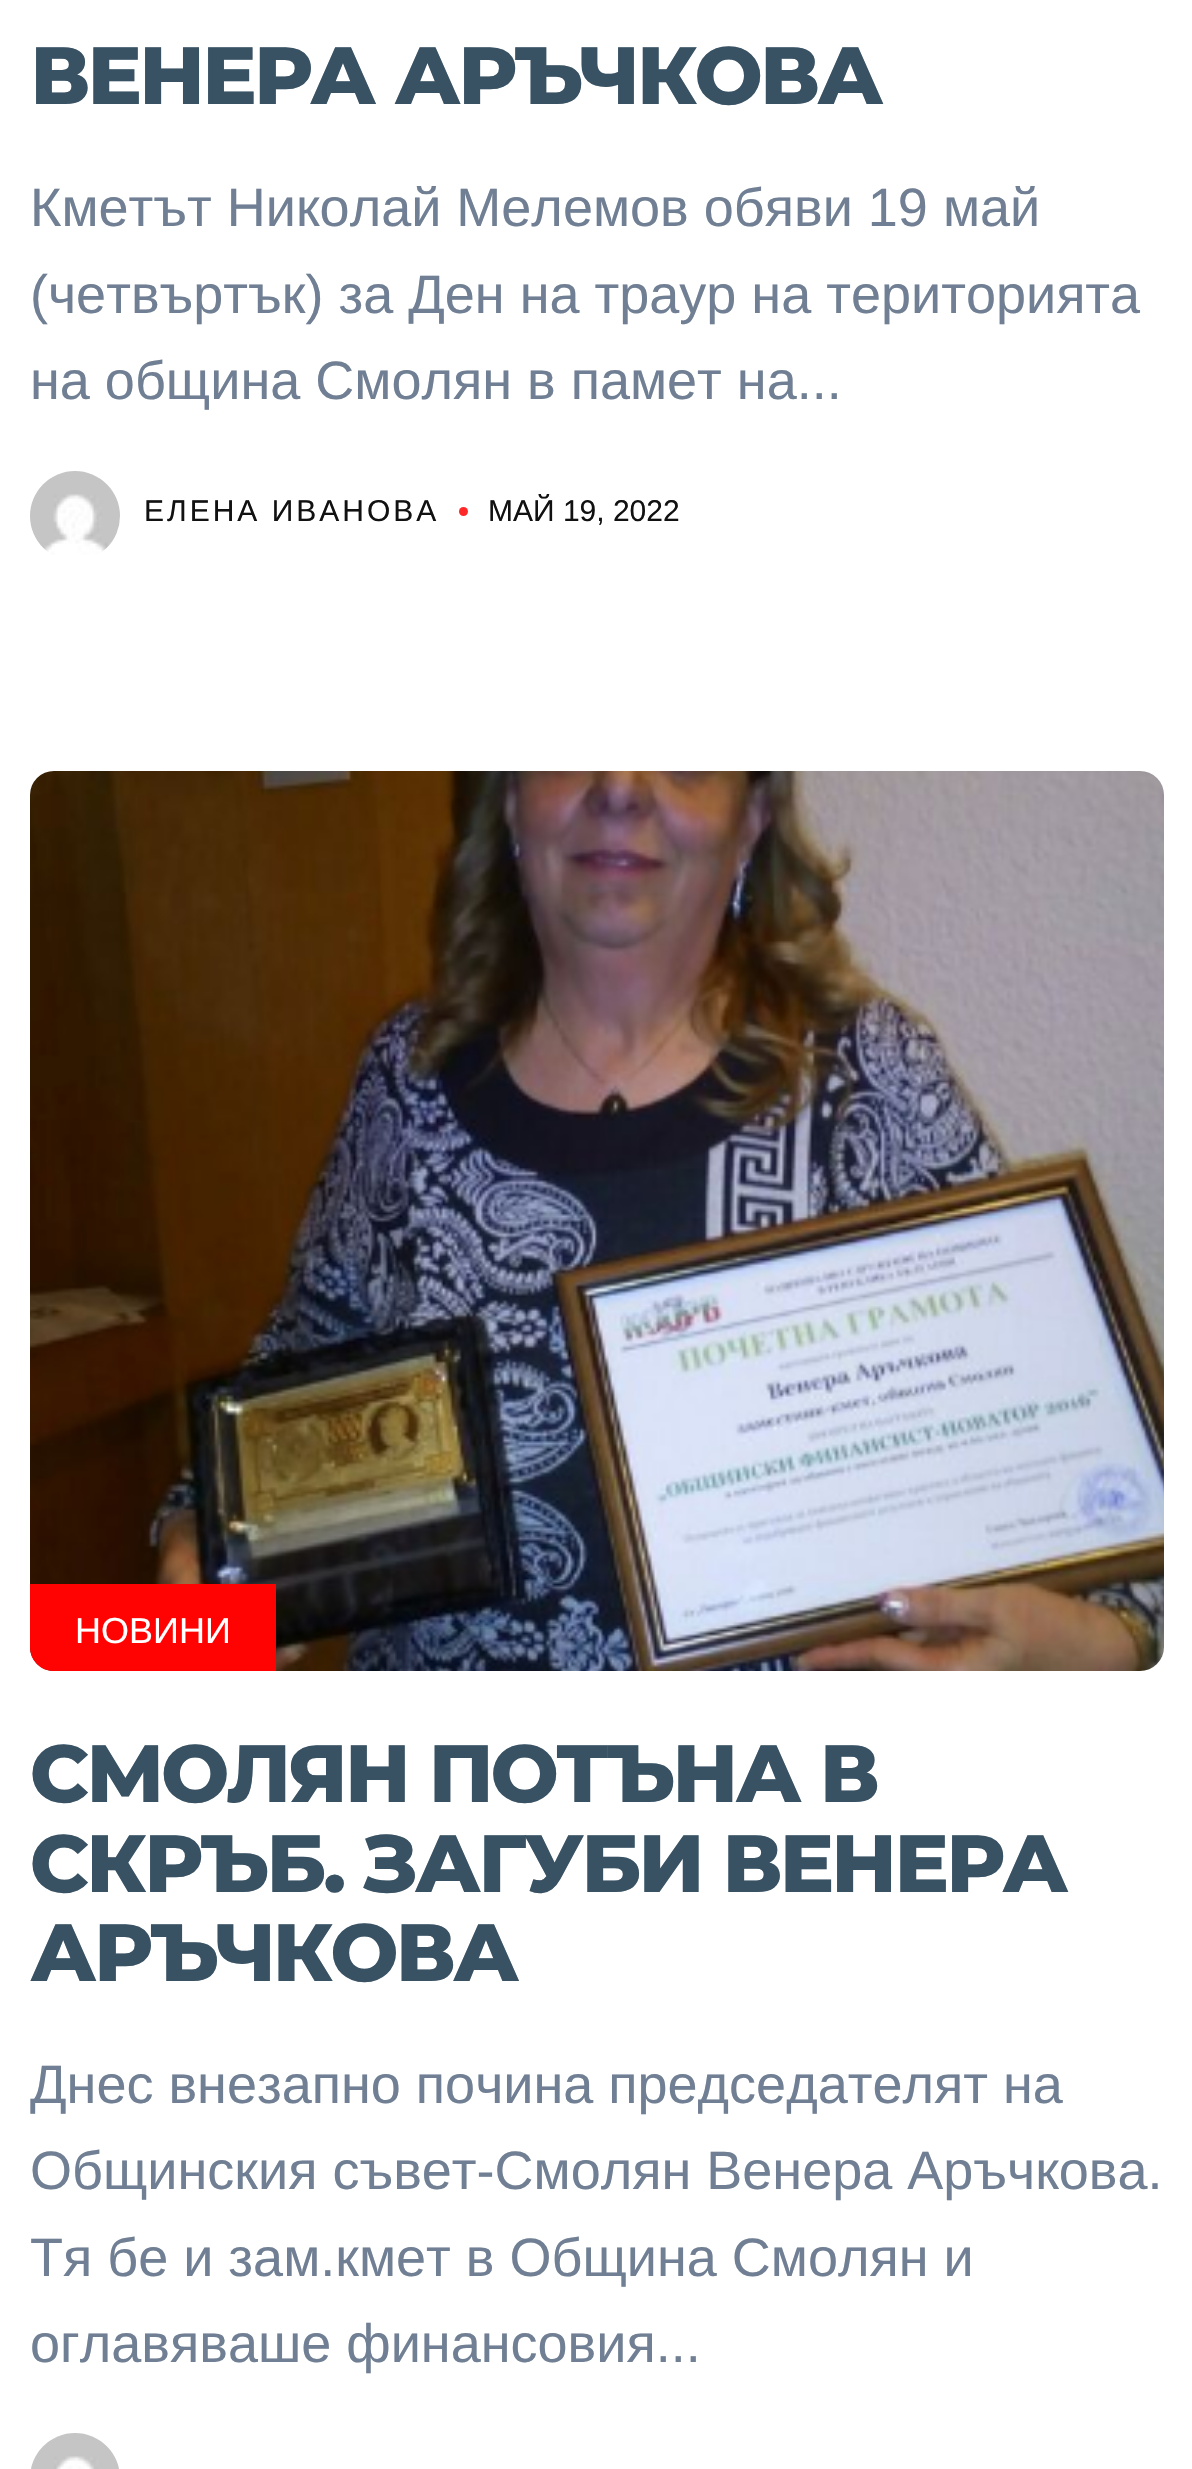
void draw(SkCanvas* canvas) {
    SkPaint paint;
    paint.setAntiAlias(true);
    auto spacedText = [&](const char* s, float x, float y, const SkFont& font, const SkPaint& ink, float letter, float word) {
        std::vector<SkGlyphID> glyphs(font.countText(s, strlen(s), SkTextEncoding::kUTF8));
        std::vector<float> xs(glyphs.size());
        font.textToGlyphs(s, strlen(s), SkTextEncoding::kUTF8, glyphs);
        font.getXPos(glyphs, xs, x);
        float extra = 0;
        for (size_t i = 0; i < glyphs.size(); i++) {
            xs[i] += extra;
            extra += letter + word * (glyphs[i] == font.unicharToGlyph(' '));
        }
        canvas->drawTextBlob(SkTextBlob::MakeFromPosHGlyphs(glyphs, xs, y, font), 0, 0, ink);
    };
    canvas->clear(0xFFFFFFFF);
    SkFont font1(fontMgr->matchFamilyStyle("Montserrat", SkFontStyle(800, SkFontStyle::kNormal_Width, SkFontStyle::kUpright_Slant)), 81);
    font1.setSubpixel(true);
    paint.setColor(0xFF385163);
    spacedText("ВЕНЕРА АРЪЧКОВА", 30, 104, font1, paint, -3, 0);
    SkFont font2(fontMgr->matchFamilyStyle("Liberation Sans", SkFontStyle::Normal()), 54);
    font2.setSubpixel(true);
    paint.setColor(0xFF707F93);
    canvas->drawString("Кметът Николай Мелемов обяви 19 май", 30, 226, font2, paint);
    canvas->drawString("(четвъртък) за Ден на траур на територията", 30, 313, font2, paint);
    canvas->drawString("на община Смолян в памет на...", 30, 399, font2, paint);
    canvas->drawImageRect(SkImages::DeferredFromEncodedData(SkData::MakeFromFileName("img1.png")), SkRect::MakeXYWH(30, 471, 90, 84), SkSamplingOptions());
    SkFont font3(fontMgr->matchFamilyStyle("Liberation Sans", SkFontStyle::Normal()), 30);
    font3.setSubpixel(true);
    paint.setColor(0xFF111111);
    spacedText("ЕЛЕНА ИВАНОВА", 144, 521, font3, paint, 3, 0);
    paint.setColor(0xFFFF2828);
    canvas->drawCircle(463.5f, 511.5f, 4.5f, paint);
    paint.setColor(0xFF111111);
    canvas->drawString("МАЙ 19, 2022", 488, 521, font3, paint);
    canvas->drawImageRect(SkImages::DeferredFromEncodedData(SkData::MakeFromFileName("img2.png")), SkRect::MakeXYWH(30, 771, 1134, 900), SkSamplingOptions());
    paint.setColor(0xFFFF0202);
    canvas->drawPath(SkPathBuilder().moveTo(30, 1584).lineTo(276, 1584).lineTo(276, 1671).lineTo(54, 1671).cubicTo(40.5f, 1671, 30, 1660.5f, 30, 1647).close().detach(), paint);
    SkFont font4(fontMgr->matchFamilyStyle("Liberation Sans", SkFontStyle::Normal()), 36);
    font4.setSubpixel(true);
    paint.setColor(0xFFFFFFFF);
    canvas->drawString("НОВИНИ", 75, 1643, font4, paint);
    paint.setColor(0xFF385163);
    spacedText("СМОЛЯН ПОТЪНА В", 30, 1802, font1, paint, -3, 0);
    spacedText("СКРЪБ. ЗАГУБИ ВЕНЕРА", 30, 1892, font1, paint, -3, 0);
    spacedText("АРЪЧКОВА", 30, 1981, font1, paint, -3, 0);
    paint.setColor(0xFF707F93);
    canvas->drawString("Днес внезапно почина председателят на", 30, 2103, font2, paint);
    canvas->drawString("Общинския съвет-Смолян Венера Аръчкова.", 30, 2189, font2, paint);
    canvas->drawString("Тя бе и зам.кмет в Община Смолян и", 30, 2276, font2, paint);
    canvas->drawString("оглавяваше финансовия...", 30, 2362, font2, paint);
    canvas->drawImageRect(SkImages::DeferredFromEncodedData(SkData::MakeFromFileName("img3.png")), SkRect::MakeXYWH(31, 2433, 88, 36), SkSamplingOptions());
}
